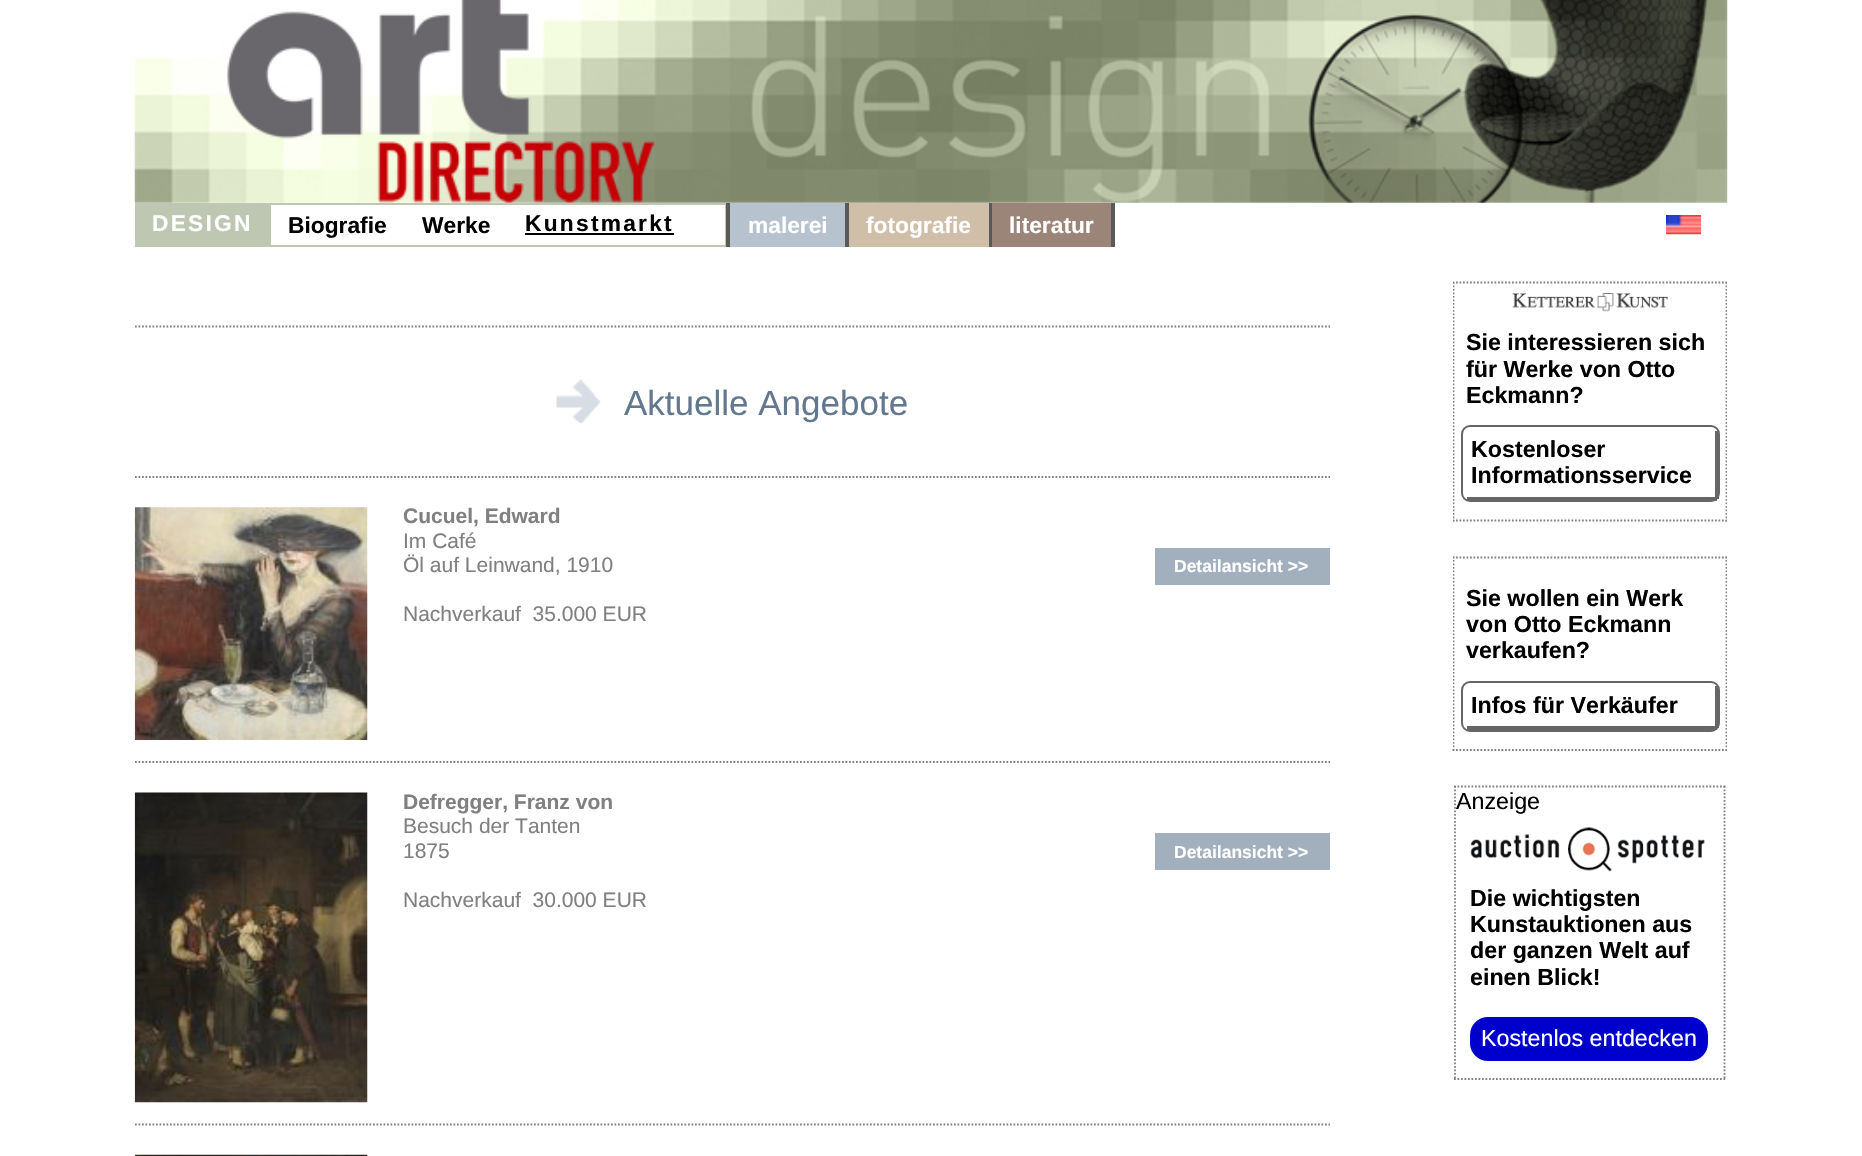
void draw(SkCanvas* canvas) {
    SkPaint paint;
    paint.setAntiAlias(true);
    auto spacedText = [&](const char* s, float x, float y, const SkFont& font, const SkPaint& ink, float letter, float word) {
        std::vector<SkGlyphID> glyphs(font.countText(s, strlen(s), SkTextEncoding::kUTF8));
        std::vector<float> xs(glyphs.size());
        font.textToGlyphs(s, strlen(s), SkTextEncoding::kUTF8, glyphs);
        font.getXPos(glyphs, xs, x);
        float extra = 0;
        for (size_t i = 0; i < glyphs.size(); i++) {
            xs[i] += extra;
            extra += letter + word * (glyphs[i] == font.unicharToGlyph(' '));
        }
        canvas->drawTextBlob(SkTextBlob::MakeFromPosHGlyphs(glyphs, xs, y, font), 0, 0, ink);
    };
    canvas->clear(0xFFFFFFFF);
    canvas->drawImageRect(SkImages::DeferredFromEncodedData(SkData::MakeFromFileName("img1.png")), SkRect::MakeXYWH(134, 0, 1594, 203), SkSamplingOptions());
    paint.setColor(0xFFBEC7B2);
    canvas->drawRect(SkRect::MakeXYWH(135, 203, 136, 44), paint);
    SkFont font1(fontMgr->matchFamilyStyle("Liberation Sans", SkFontStyle::Bold()), 22.75f);
    font1.setSubpixel(true);
    paint.setColor(0xFFFFFFFF);
    spacedText("DESIGN", 152, 231, font1, paint, 2.25f, 0);
    paint.setColor(0xFFBEC7B2);
    canvas->drawRect(SkRect::MakeXYWH(271, 203, 420, 2), paint);
    canvas->drawRect(SkRect::MakeXYWH(271, 245, 420, 2), paint);
    paint.setColor(0xFF000000);
    canvas->drawString("Biografie", 288, 233, font1, paint);
    canvas->drawString("Werke", 422, 233, font1, paint);
    spacedText("Kunstmarkt", 525, 231, font1, paint, 2.25f, 0);
    canvas->drawRect(SkRect::MakeXYWH(525, 233, 149, 2), paint);
    paint.setColor(0xFFBEC7B2);
    canvas->drawRect(SkRect::MakeXYWH(725, 203, 1, 44), paint);
    canvas->drawRect(SkRect::MakeXYWH(691, 203, 35, 2), paint);
    canvas->drawRect(SkRect::MakeXYWH(691, 245, 35, 2), paint);
    paint.setColor(0xFF595959);
    canvas->drawRect(SkRect::MakeXYWH(726, 203, 4, 44), paint);
    paint.setColor(0xFFB6C2CE);
    canvas->drawRect(SkRect::MakeXYWH(730, 203, 115, 44), paint);
    paint.setColor(0xFF595959);
    canvas->drawRect(SkRect::MakeXYWH(845, 203, 4, 44), paint);
    paint.setColor(0xFFFFFFFF);
    canvas->drawString("malerei", 748, 233, font1, paint);
    paint.setColor(0xFFCFBEA8);
    canvas->drawRect(SkRect::MakeXYWH(849, 203, 140, 44), paint);
    paint.setColor(0xFF595959);
    canvas->drawRect(SkRect::MakeXYWH(989, 203, 3, 44), paint);
    paint.setColor(0xFFFFFFFF);
    canvas->drawString("fotografie", 866, 233, font1, paint);
    paint.setColor(0xFF9B8578);
    canvas->drawRect(SkRect::MakeXYWH(992, 203, 119, 44), paint);
    paint.setColor(0xFF595959);
    canvas->drawRect(SkRect::MakeXYWH(1111, 203, 4, 44), paint);
    paint.setColor(0xFFFFFFFF);
    canvas->drawString("literatur", 1009, 233, font1, paint);
    canvas->drawImageRect(SkImages::DeferredFromEncodedData(SkData::MakeFromFileName("img2.png")), SkRect::MakeXYWH(1666, 215, 35, 20), SkSamplingOptions());
    paint.setStyle(SkPaint::kStroke_Style);
    paint.setStrokeWidth(1.8f);
    paint.setColor(0xFF808080);
    paint.setPathEffect(SkDashPathEffect::Make({{1.75f, 1.75f}}, 0));
    canvas->drawPath(SkPathBuilder().moveTo(135, 326.5f).lineTo(1330, 326.5f).detach(), paint);
    paint.setPathEffect(nullptr);
    canvas->drawImageRect(SkImages::DeferredFromEncodedData(SkData::MakeFromFileName("img3.png")), SkRect::MakeXYWH(556, 379, 45, 44), SkSamplingOptions());
    SkFont font2(fontMgr->matchFamilyStyle("Liberation Sans", SkFontStyle::Normal()), 35);
    font2.setSubpixel(true);
    paint.setStyle(SkPaint::kFill_Style);
    paint.setColor(0xFF62788F);
    canvas->drawString("Aktuelle Angebote", 624, 415, font2, paint);
    paint.setStyle(SkPaint::kStroke_Style);
    paint.setColor(0xFF808080);
    paint.setPathEffect(SkDashPathEffect::Make({{1.75f, 1.75f}}, 0));
    canvas->drawPath(SkPathBuilder().moveTo(135, 477).lineTo(1330, 477).detach(), paint);
    paint.setPathEffect(nullptr);
    canvas->drawImageRect(SkImages::DeferredFromEncodedData(SkData::MakeFromFileName("img4.png")), SkRect::MakeXYWH(134, 507, 234, 233), SkSamplingOptions());
    SkFont font3(fontMgr->matchFamilyStyle("Liberation Sans", SkFontStyle::Bold()), 21);
    font3.setSubpixel(true);
    paint.setStyle(SkPaint::kFill_Style);
    canvas->drawString("Cucuel, Edward", 403, 523, font3, paint);
    SkFont font4(fontMgr->matchFamilyStyle("Liberation Sans", SkFontStyle::Normal()), 21);
    font4.setSubpixel(true);
    canvas->drawString("Im Café", 403, 548, font4, paint);
    canvas->drawString("Öl auf Leinwand, 1910", 403, 572, font4, paint);
    canvas->drawString("Nachverkauf  35.000 EUR", 403, 621, font4, paint);
    paint.setColor(0xFFA2B0BD);
    canvas->drawRect(SkRect::MakeXYWH(1155, 548, 175, 37), paint);
    SkFont font5(fontMgr->matchFamilyStyle("Liberation Sans", SkFontStyle::Bold()), 17.5f);
    font5.setSubpixel(true);
    paint.setColor(0xFFFFFFFF);
    canvas->drawString("Detailansicht >>", 1174, 572, font5, paint);
    paint.setStyle(SkPaint::kStroke_Style);
    paint.setColor(0xFF808080);
    paint.setPathEffect(SkDashPathEffect::Make({{1.75f, 1.75f}}, 0));
    canvas->drawPath(SkPathBuilder().moveTo(135, 762).lineTo(1330, 762).detach(), paint);
    paint.setPathEffect(nullptr);
    canvas->drawImageRect(SkImages::DeferredFromEncodedData(SkData::MakeFromFileName("img5.png")), SkRect::MakeXYWH(134, 792, 234, 311), SkSamplingOptions());
    paint.setStyle(SkPaint::kFill_Style);
    canvas->drawString("Defregger, Franz von", 403, 809, font3, paint);
    canvas->drawString("Besuch der Tanten", 403, 833, font4, paint);
    canvas->drawString("1875", 403, 858, font4, paint);
    canvas->drawString("Nachverkauf  30.000 EUR", 403, 907, font4, paint);
    paint.setColor(0xFFA2B0BD);
    canvas->drawRect(SkRect::MakeXYWH(1155, 833, 175, 37), paint);
    paint.setColor(0xFFFFFFFF);
    canvas->drawString("Detailansicht >>", 1174, 858, font5, paint);
    paint.setStyle(SkPaint::kStroke_Style);
    paint.setColor(0xFF808080);
    paint.setPathEffect(SkDashPathEffect::Make({{1.75f, 1.75f}}, 0));
    canvas->drawPath(SkPathBuilder().moveTo(135, 1124.5f).lineTo(1330, 1124.5f).detach(), paint);
    paint.setPathEffect(nullptr);
    canvas->drawImageRect(SkImages::DeferredFromEncodedData(SkData::MakeFromFileName("img6.png")), SkRect::MakeXYWH(134, 1154, 234, 2), SkSamplingOptions());
    canvas->save();
    canvas->clipRect(SkRect::MakeXYWH(1453, 247, 274, 833));
    paint.setPathEffect(SkDashPathEffect::Make({{1.75f, 1.75f}}, 0));
    canvas->drawPath(SkPathBuilder().moveTo(1452.5f, 282.5f).lineTo(1727, 282.5f).detach(), paint);
    paint.setPathEffect(nullptr);
    paint.setPathEffect(SkDashPathEffect::Make({{1.75f, 1.75f}}, 0));
    canvas->drawPath(SkPathBuilder().moveTo(1726.5f, 282).lineTo(1726.5f, 521.5f).detach(), paint);
    paint.setPathEffect(nullptr);
    paint.setPathEffect(SkDashPathEffect::Make({{1.75f, 1.75f}}, 0));
    canvas->drawPath(SkPathBuilder().moveTo(1452.5f, 520.5f).lineTo(1727, 520.5f).detach(), paint);
    paint.setPathEffect(nullptr);
    paint.setPathEffect(SkDashPathEffect::Make({{1.75f, 1.75f}}, 0));
    canvas->drawPath(SkPathBuilder().moveTo(1453.5f, 282).lineTo(1453.5f, 521.5f).detach(), paint);
    paint.setPathEffect(nullptr);
    canvas->restore();
    canvas->drawImageRect(SkImages::DeferredFromEncodedData(SkData::MakeFromFileName("img7.png")), SkRect::MakeXYWH(1512, 293, 156, 19), SkSamplingOptions());
    SkFont font6(fontMgr->matchFamilyStyle("Liberation Sans", SkFontStyle::Bold()), 23.25f);
    font6.setSubpixel(true);
    paint.setStyle(SkPaint::kFill_Style);
    paint.setColor(0xFF000000);
    canvas->drawString("Sie interessieren sich", 1466, 350, font6, paint);
    canvas->drawString("für Werke von Otto", 1466, 377, font6, paint);
    canvas->drawString("Eckmann?", 1466, 403, font6, paint);
    paint.setStyle(SkPaint::kStroke_Style);
    paint.setStrokeWidth(2);
    paint.setColor(0xFF666666);
    canvas->drawRoundRect(SkRect::MakeXYWH(1462, 426, 257, 75), 8, 8, paint);
    paint.setStyle(SkPaint::kFill_Style);
    canvas->drawRect(SkRect::MakeXYWH(1715, 431, 4, 68), paint);
    canvas->drawRect(SkRect::MakeXYWH(1467, 497, 250, 4), paint);
    paint.setColor(0xFF000000);
    canvas->drawString("Kostenloser", 1471, 457, font6, paint);
    canvas->drawString("Informationsservice", 1471, 483, font6, paint);
    canvas->save();
    canvas->clipRect(SkRect::MakeXYWH(1453, 247, 274, 833));
    paint.setStyle(SkPaint::kStroke_Style);
    paint.setStrokeWidth(1.8f);
    paint.setColor(0xFF808080);
    paint.setPathEffect(SkDashPathEffect::Make({{1.75f, 1.75f}}, 0));
    canvas->drawPath(SkPathBuilder().moveTo(1452.5f, 557.5f).lineTo(1727, 557.5f).detach(), paint);
    paint.setPathEffect(nullptr);
    paint.setPathEffect(SkDashPathEffect::Make({{1.75f, 1.75f}}, 0));
    canvas->drawPath(SkPathBuilder().moveTo(1726.5f, 556.5f).lineTo(1726.5f, 751).detach(), paint);
    paint.setPathEffect(nullptr);
    canvas->restore();
    paint.setPathEffect(SkDashPathEffect::Make({{1.75f, 1.75f}}, 0));
    canvas->drawPath(SkPathBuilder().moveTo(1452.5f, 750).lineTo(1727, 750).detach(), paint);
    paint.setPathEffect(nullptr);
    canvas->save();
    canvas->clipRect(SkRect::MakeXYWH(1453, 247, 274, 833));
    paint.setPathEffect(SkDashPathEffect::Make({{1.75f, 1.75f}}, 0));
    canvas->drawPath(SkPathBuilder().moveTo(1453.5f, 556.5f).lineTo(1453.5f, 751).detach(), paint);
    paint.setPathEffect(nullptr);
    canvas->restore();
    paint.setStyle(SkPaint::kFill_Style);
    paint.setColor(0xFF000000);
    canvas->drawString("Sie wollen ein Werk", 1466, 606, font6, paint);
    canvas->drawString("von Otto Eckmann", 1466, 632, font6, paint);
    canvas->drawString("verkaufen?", 1466, 658, font6, paint);
    paint.setStyle(SkPaint::kStroke_Style);
    paint.setStrokeWidth(2);
    paint.setColor(0xFF666666);
    canvas->drawRoundRect(SkRect::MakeXYWH(1462, 682, 257, 49), 8, 8, paint);
    paint.setStyle(SkPaint::kFill_Style);
    canvas->drawRect(SkRect::MakeXYWH(1715, 686, 4, 42), paint);
    canvas->drawRect(SkRect::MakeXYWH(1467, 726, 250, 4), paint);
    paint.setColor(0xFF000000);
    canvas->drawString("Infos für Verkäufer", 1471, 713, font6, paint);
    paint.setStyle(SkPaint::kStroke_Style);
    paint.setStrokeWidth(1.8f);
    paint.setColor(0xFF808080);
    paint.setPathEffect(SkDashPathEffect::Make({{1.75f, 1.75f}}, 0));
    canvas->drawPath(SkPathBuilder().moveTo(1454, 786.5f).lineTo(1725.5f, 786.5f).detach(), paint);
    paint.setPathEffect(nullptr);
    paint.setPathEffect(SkDashPathEffect::Make({{1.75f, 1.75f}}, 0));
    canvas->drawPath(SkPathBuilder().moveTo(1724.5f, 786).lineTo(1724.5f, 1080).detach(), paint);
    paint.setPathEffect(nullptr);
    paint.setPathEffect(SkDashPathEffect::Make({{1.75f, 1.75f}}, 0));
    canvas->drawPath(SkPathBuilder().moveTo(1454, 1079).lineTo(1725.5f, 1079).detach(), paint);
    paint.setPathEffect(nullptr);
    paint.setPathEffect(SkDashPathEffect::Make({{1.75f, 1.75f}}, 0));
    canvas->drawPath(SkPathBuilder().moveTo(1455, 786).lineTo(1455, 1080).detach(), paint);
    paint.setPathEffect(nullptr);
    SkFont font7(fontMgr->matchFamilyStyle("Liberation Sans", SkFontStyle::Normal()), 23.25f);
    font7.setSubpixel(true);
    paint.setStyle(SkPaint::kFill_Style);
    paint.setColor(0xFF000000);
    canvas->drawString("Anzeige", 1456, 809, font7, paint);
    canvas->drawImageRect(SkImages::DeferredFromEncodedData(SkData::MakeFromFileName("img8.png")), SkRect::MakeXYWH(1470, 827, 235, 45), SkSamplingOptions());
    canvas->drawString("Die wichtigsten", 1470, 906, font6, paint);
    canvas->drawString("Kunstauktionen aus", 1470, 932, font6, paint);
    canvas->drawString("der ganzen Welt auf", 1470, 958, font6, paint);
    canvas->drawString("einen Blick!", 1470, 985, font6, paint);
    paint.setColor(0xFF0000CC);
    canvas->drawRoundRect(SkRect::MakeXYWH(1470, 1017, 238, 44), 18, 18, paint);
    paint.setColor(0xFFFFFFFF);
    canvas->drawString("Kostenlos entdecken", 1481, 1046, font7, paint);
}
